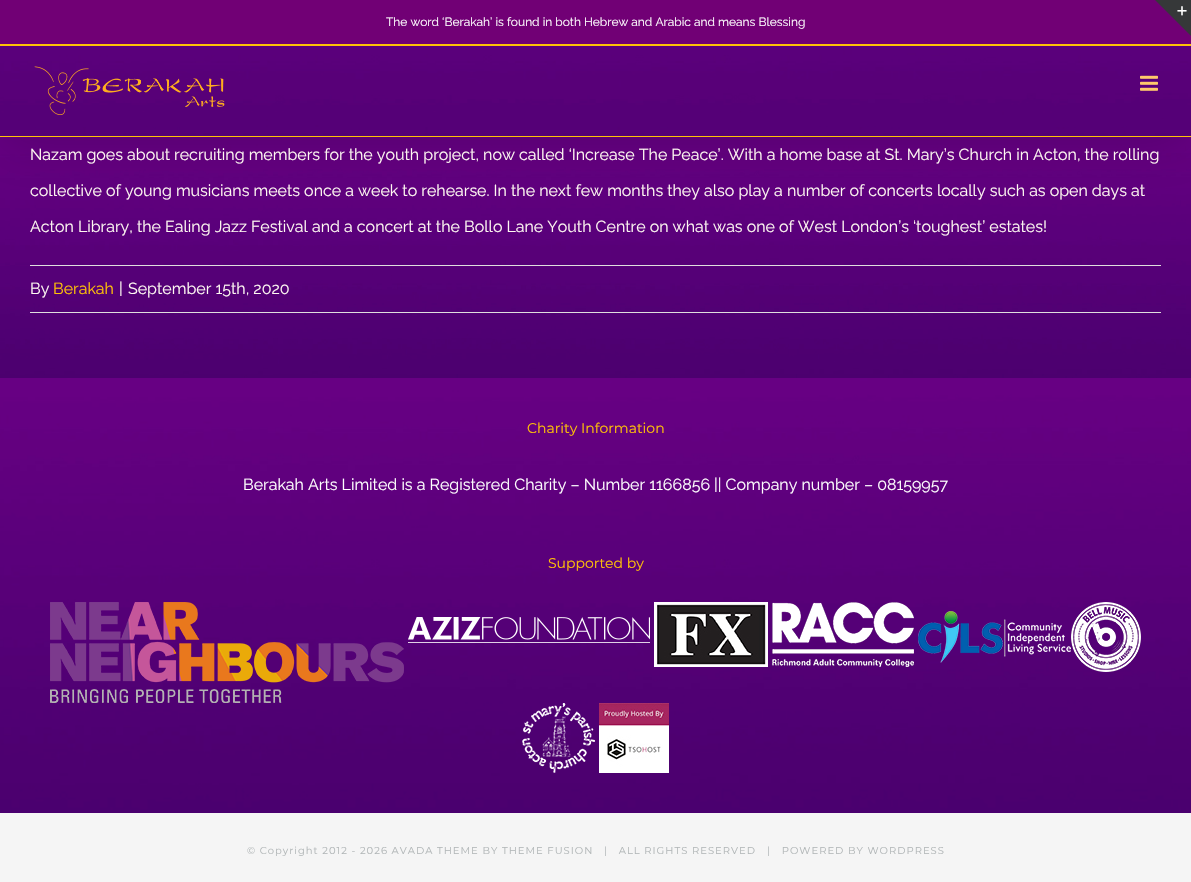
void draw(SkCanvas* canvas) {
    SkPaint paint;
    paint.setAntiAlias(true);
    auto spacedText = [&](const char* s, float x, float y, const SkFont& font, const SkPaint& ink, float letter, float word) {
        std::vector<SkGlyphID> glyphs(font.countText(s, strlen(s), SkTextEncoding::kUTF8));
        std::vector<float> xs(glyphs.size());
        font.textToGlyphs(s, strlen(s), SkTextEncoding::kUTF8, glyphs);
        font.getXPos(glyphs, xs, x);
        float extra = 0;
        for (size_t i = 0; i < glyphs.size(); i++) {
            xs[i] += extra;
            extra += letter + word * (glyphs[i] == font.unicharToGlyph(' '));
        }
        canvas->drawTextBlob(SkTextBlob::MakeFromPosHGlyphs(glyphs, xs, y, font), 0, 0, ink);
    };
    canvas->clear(0xFFFFFFFF);
    canvas->drawImageRect(SkImages::DeferredFromEncodedData(SkData::MakeFromFileName("img5.png")), SkRect::MakeXYWH(0, 137, 1191, 241), SkSamplingOptions());
    paint.setColor(0x24000000);
    paint.setMaskFilter(SkMaskFilter::MakeBlur(kNormal_SkBlurStyle, 25));
    canvas->drawRect(SkRect::MakeXYWH(2, 12, 1187, 133), paint);
    paint.setMaskFilter(nullptr);
    paint.setColor(0xFF710075);
    canvas->drawRect(SkRect::MakeXYWH(0, 0, 1191, 44), paint);
    paint.setColor(0xFFFFC107);
    canvas->drawRect(SkRect::MakeXYWH(0, 44, 1191, 2), paint);
    SkFont font1(fontMgr->matchFamilyStyle("Raleway", SkFontStyle::Normal()), 12);
    font1.setSubpixel(true);
    paint.setColor(0xFFFFFFFF);
    canvas->drawString("The word ‘Berakah’ is found in both Hebrew and Arabic and means Blessing", 386, 26, font1, paint);
    canvas->drawImageRect(SkImages::DeferredFromEncodedData(SkData::MakeFromFileName("img1.png")), SkRect::MakeXYWH(0, 46, 1191, 90), SkSamplingOptions());
    paint.setColor(0xFFFFC107);
    canvas->drawRect(SkRect::MakeXYWH(0, 136, 1191, 1), paint);
    canvas->drawImageRect(SkImages::DeferredFromEncodedData(SkData::MakeFromFileName("img2.png")), SkRect::MakeXYWH(34, 66, 191, 49), SkSamplingOptions());
    canvas->drawImageRect(SkImages::DeferredFromEncodedData(SkData::MakeFromFileName("img3.png")), SkRect::MakeXYWH(1140, 75, 18, 16), SkSamplingOptions());
    paint.setColor(0xFF363839);
    canvas->drawPath(SkPathBuilder().moveTo(1155, 0).lineTo(1191, 0).lineTo(1191, 36).close().detach(), paint);
    canvas->drawImageRect(SkImages::DeferredFromEncodedData(SkData::MakeFromFileName("img4.png")), SkRect::MakeXYWH(1177, 6, 10, 10), SkSamplingOptions());
    SkFont font2(fontMgr->matchFamilyStyle("Raleway", SkFontStyle::Normal()), 16);
    font2.setSubpixel(true);
    paint.setColor(0xFFFFF9F2);
    canvas->drawString("Nazam goes about recruiting members for the youth project, now called ‘Increase The Peace’. With a home base at St. Mary’s Church in Acton, the rolling", 30, 160, font2, paint);
    canvas->drawString("collective of young musicians meets once a week to rehearse. In the next few months they also play a number of concerts locally such as open days at", 30, 196, font2, paint);
    canvas->drawString("Acton Library, the Ealing Jazz Festival and a concert at the Bollo Lane Youth Centre on what was one of West London’s ‘toughest’ estates!", 30, 232, font2, paint);
    paint.setColor(0xFFE0DEDE);
    canvas->drawRect(SkRect::MakeXYWH(30, 265, 1131, 1), paint);
    canvas->drawRect(SkRect::MakeXYWH(30, 312, 1131, 1), paint);
    paint.setColor(0xFFFFF9F2);
    canvas->drawString("By", 30, 294, font2, paint);
    paint.setColor(0xFFFFC107);
    canvas->drawString("Berakah", 53, 294, font2, paint);
    paint.setColor(0xFFFFF9F2);
    canvas->drawString("|", 119, 294, font2, paint);
    canvas->drawString("September 15th, 2020", 128, 294, font2, paint);
    canvas->drawImageRect(SkImages::DeferredFromEncodedData(SkData::MakeFromFileName("img6.png")), SkRect::MakeXYWH(0, 378, 1191, 435), SkSamplingOptions());
    SkFont font3(fontMgr->matchFamilyStyle("Montserrat", SkFontStyle(100, SkFontStyle::kNormal_Width, SkFontStyle::kUpright_Slant)), 14);
    font3.setSubpixel(true);
    paint.setColor(0xFFFFC107);
    canvas->drawString("Charity Information", 527, 433, font3, paint);
    paint.setColor(0xFFFFFFFF);
    canvas->drawString("Berakah Arts Limited is a Registered Charity – Number 1166856 || Company number – 08159957", 243, 490, font2, paint);
    paint.setColor(0xFFFFC107);
    canvas->drawString("Supported by", 548, 568, font3, paint);
    canvas->drawImageRect(SkImages::DeferredFromEncodedData(SkData::MakeFromFileName("img7.png")), SkRect::MakeXYWH(50, 602, 354, 101), SkSamplingOptions());
    canvas->drawImageRect(SkImages::DeferredFromEncodedData(SkData::MakeFromFileName("img8.png")), SkRect::MakeXYWH(408, 617, 242, 26), SkSamplingOptions());
    canvas->drawImageRect(SkImages::DeferredFromEncodedData(SkData::MakeFromFileName("img9.png")), SkRect::MakeXYWH(654, 602, 114, 65), SkSamplingOptions());
    canvas->drawImageRect(SkImages::DeferredFromEncodedData(SkData::MakeFromFileName("img10.png")), SkRect::MakeXYWH(772, 602, 142, 65), SkSamplingOptions());
    canvas->drawImageRect(SkImages::DeferredFromEncodedData(SkData::MakeFromFileName("img11.png")), SkRect::MakeXYWH(918, 611, 153, 52), SkSamplingOptions());
    canvas->drawImageRect(SkImages::DeferredFromEncodedData(SkData::MakeFromFileName("img12.png")), SkRect::MakeXYWH(1071, 602, 70, 70), SkSamplingOptions());
    canvas->drawImageRect(SkImages::DeferredFromEncodedData(SkData::MakeFromFileName("img13.png")), SkRect::MakeXYWH(522, 703, 73, 70), SkSamplingOptions());
    canvas->drawImageRect(SkImages::DeferredFromEncodedData(SkData::MakeFromFileName("img14.png")), SkRect::MakeXYWH(599, 703, 70, 70), SkSamplingOptions());
    paint.setColor(0xFFF5F5F5);
    canvas->drawRect(SkRect::MakeXYWH(0, 813, 1191, 69), paint);
    SkFont font4(fontMgr->matchFamilyStyle("Montserrat", SkFontStyle(100, SkFontStyle::kNormal_Width, SkFontStyle::kUpright_Slant)), 10);
    font4.setSubpixel(true);
    paint.setColor(0xFFB2B7B8);
    spacedText("© Copyright 2012 - 2026 AVADA THEME BY THEME FUSION", 247, 854, font4, paint, 1, 0);
    spacedText("|   ALL RIGHTS RESERVED", 604, 854, font4, paint, 1, 0);
    spacedText("|   POWERED BY WORDPRESS", 767, 854, font4, paint, 1, 0);
}
